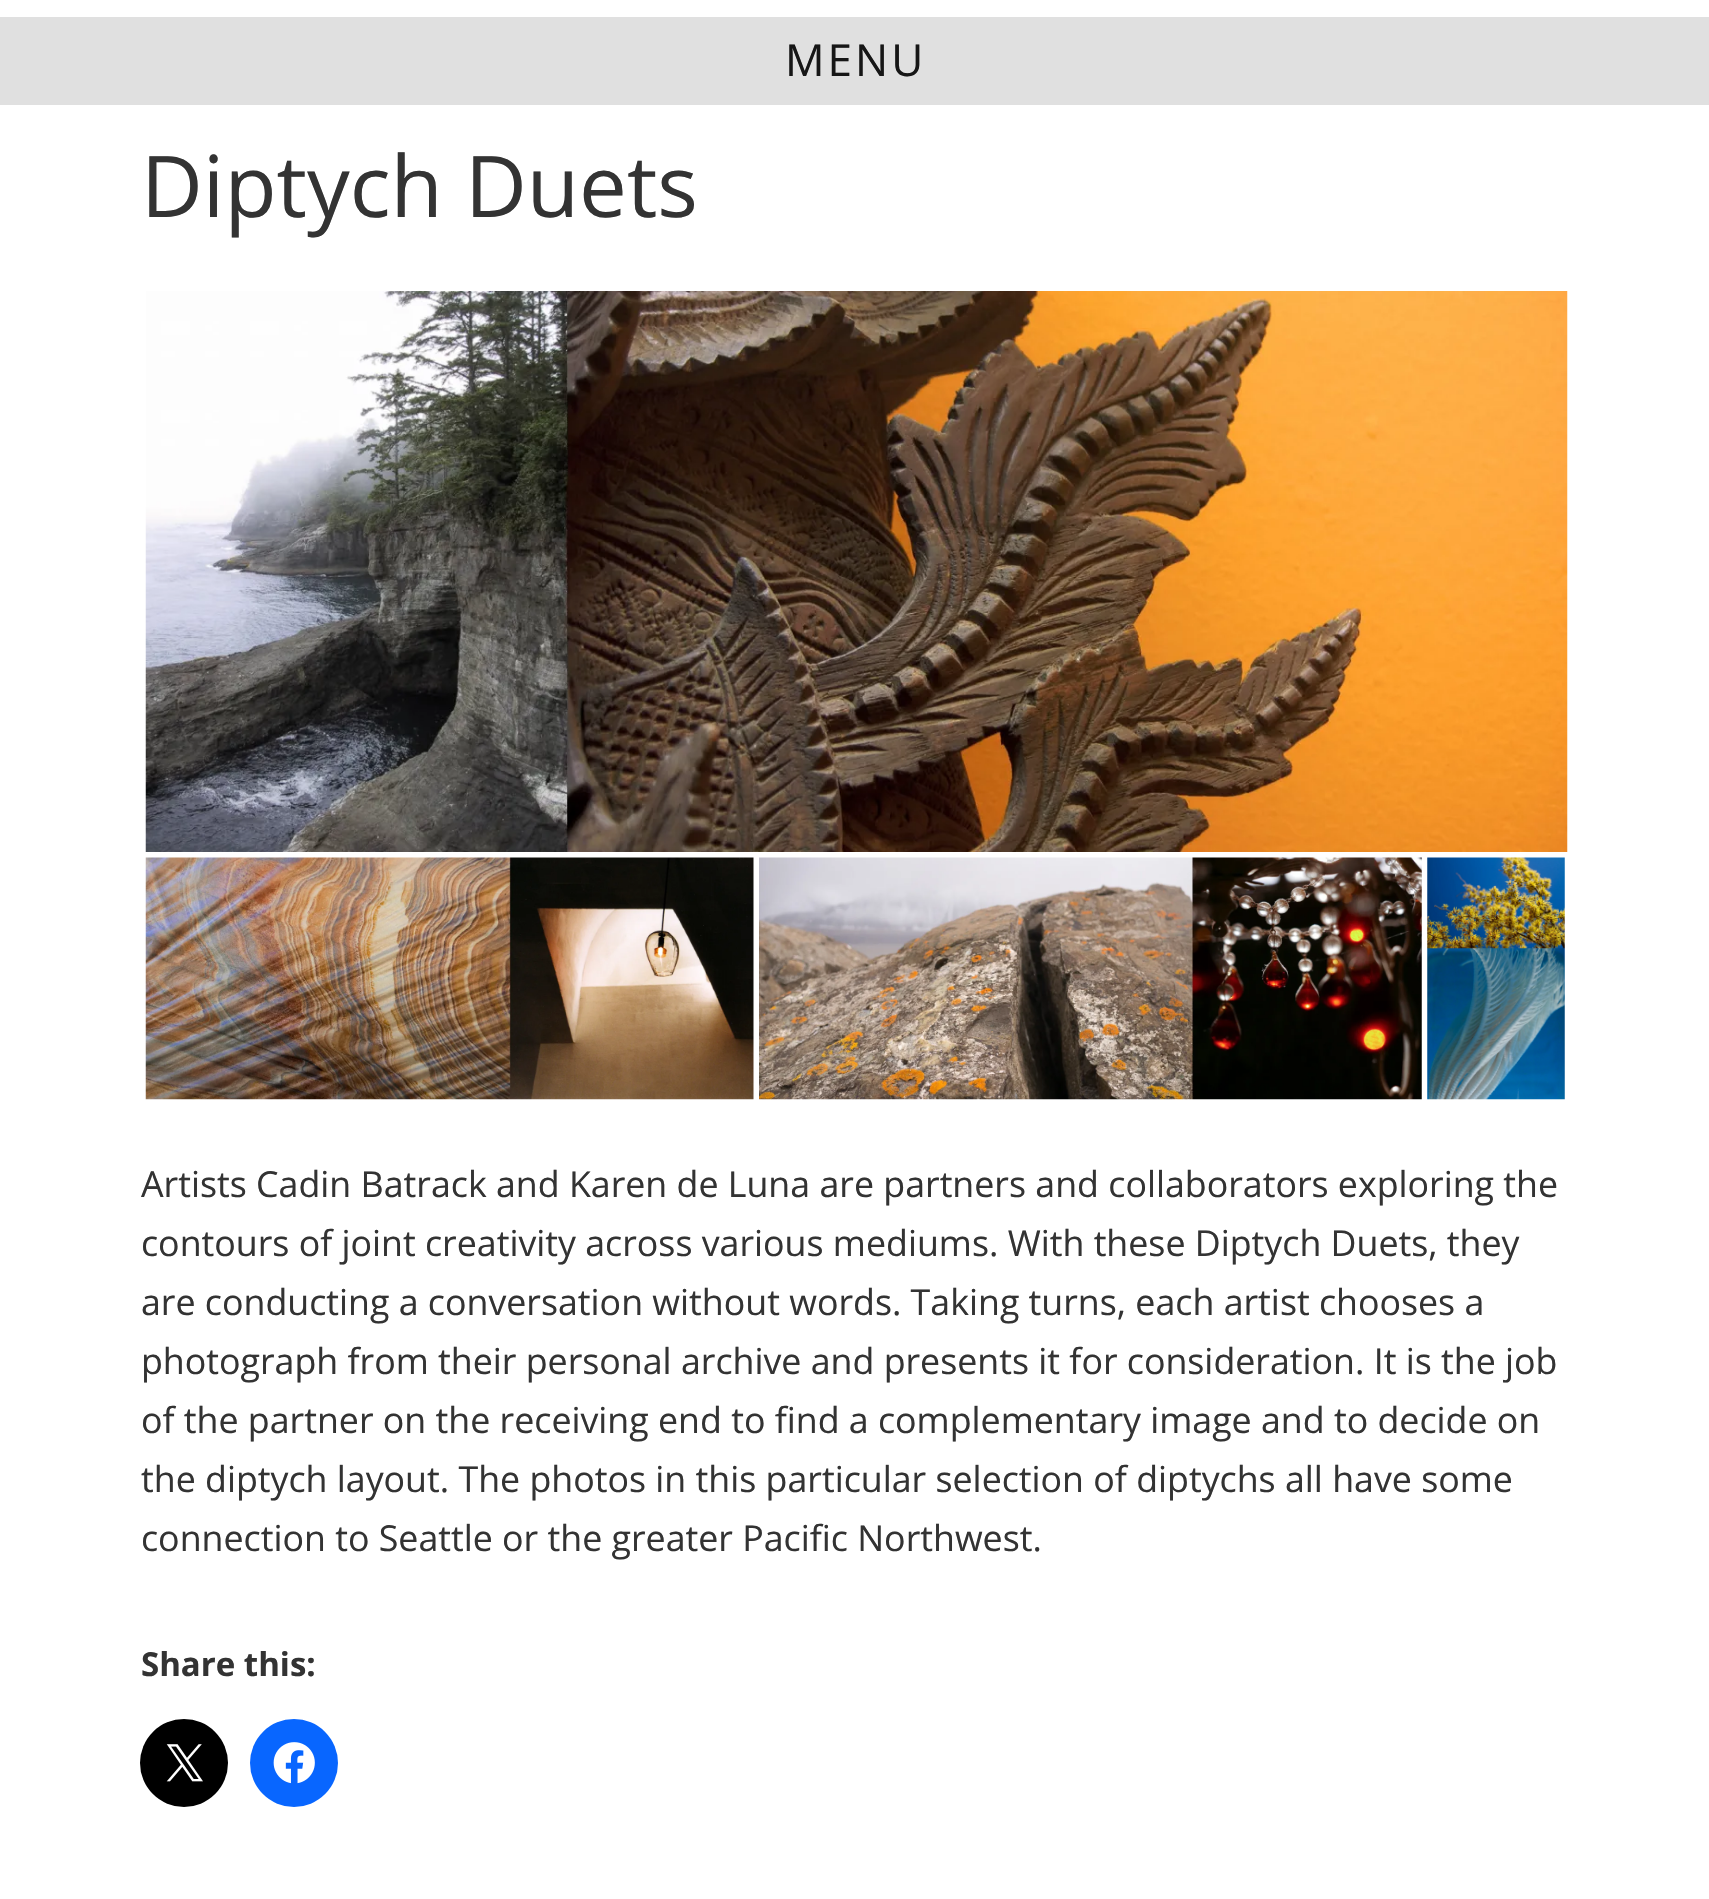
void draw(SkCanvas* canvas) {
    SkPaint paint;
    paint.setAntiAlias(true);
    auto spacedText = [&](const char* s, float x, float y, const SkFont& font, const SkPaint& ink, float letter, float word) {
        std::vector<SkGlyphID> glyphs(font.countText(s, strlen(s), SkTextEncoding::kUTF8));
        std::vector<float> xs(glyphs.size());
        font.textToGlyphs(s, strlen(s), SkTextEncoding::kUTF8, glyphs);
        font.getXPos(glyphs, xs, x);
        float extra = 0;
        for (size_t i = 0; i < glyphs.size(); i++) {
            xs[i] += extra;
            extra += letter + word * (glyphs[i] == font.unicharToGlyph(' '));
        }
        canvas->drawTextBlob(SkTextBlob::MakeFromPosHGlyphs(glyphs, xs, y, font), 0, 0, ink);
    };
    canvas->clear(0xFFFFFFFF);
    paint.setColor(0xFFE0E0E0);
    canvas->drawRect(SkRect::MakeXYWH(0, 17, 1709, 88), paint);
    SkFont font1(fontMgr->matchFamilyStyle("Open Sans", SkFontStyle::Normal()), 44);
    font1.setSubpixel(true);
    paint.setColor(0xFF161616);
    spacedText("MENU", 785, 76, font1, paint, 3, 0);
    SkFont font2(fontMgr->matchFamilyStyle("Open Sans", SkFontStyle::Normal()), 85.25f);
    font2.setSubpixel(true);
    paint.setColor(0xFF333333);
    canvas->drawString("Diptych Duets", 141, 217, font2, paint);
    canvas->drawImageRect(SkImages::DeferredFromEncodedData(SkData::MakeFromFileName("img1.png")), SkRect::MakeXYWH(145, 291, 1423, 561), SkSamplingOptions());
    canvas->drawImageRect(SkImages::DeferredFromEncodedData(SkData::MakeFromFileName("img2.png")), SkRect::MakeXYWH(145, 857, 609, 243), SkSamplingOptions());
    canvas->drawImageRect(SkImages::DeferredFromEncodedData(SkData::MakeFromFileName("img3.png")), SkRect::MakeXYWH(759, 857, 663, 243), SkSamplingOptions());
    canvas->drawImageRect(SkImages::DeferredFromEncodedData(SkData::MakeFromFileName("img4.png")), SkRect::MakeXYWH(1427, 857, 138, 243), SkSamplingOptions());
    SkFont font3(fontMgr->matchFamilyStyle("Open Sans", SkFontStyle::Normal()), 35.75f);
    font3.setSubpixel(true);
    canvas->drawString("Artists Cadin Batrack and Karen de Luna are partners and collaborators exploring the", 141, 1197, font3, paint);
    canvas->drawString("contours of joint creativity across various mediums. With these Diptych Duets, they", 141, 1256, font3, paint);
    canvas->drawString("are conducting a conversation without words. Taking turns, each artist chooses a", 141, 1315, font3, paint);
    canvas->drawString("photograph from their personal archive and presents it for consideration. It is the job", 141, 1374, font3, paint);
    canvas->drawString("of the partner on the receiving end to find a complementary image and to decide on", 141, 1433, font3, paint);
    canvas->drawString("the diptych layout. The photos in this particular selection of diptychs all have some", 141, 1492, font3, paint);
    canvas->drawString("connection to Seattle or the greater Pacific Northwest.", 141, 1551, font3, paint);
    SkFont font4(fontMgr->matchFamilyStyle("Open Sans", SkFontStyle::Bold()), 33);
    font4.setSubpixel(true);
    canvas->drawString("Share this:", 141, 1676, font4, paint);
    paint.setColor(0xFF000000);
    canvas->drawCircle(184, 1763, 44, paint);
    canvas->drawImageRect(SkImages::DeferredFromEncodedData(SkData::MakeFromFileName("img5.png")), SkRect::MakeXYWH(166, 1744, 37, 38), SkSamplingOptions());
    paint.setColor(0xFF0866FF);
    canvas->drawCircle(294, 1763, 44, paint);
    canvas->drawImageRect(SkImages::DeferredFromEncodedData(SkData::MakeFromFileName("img6.png")), SkRect::MakeXYWH(273, 1742, 42, 42), SkSamplingOptions());
}
